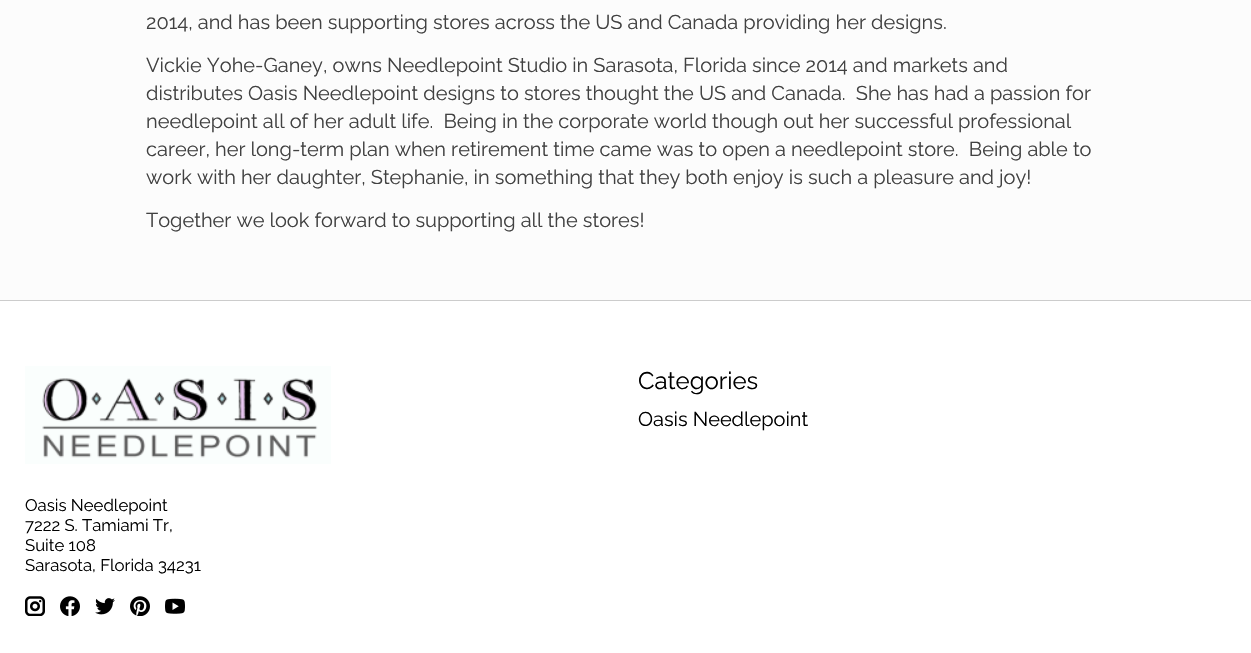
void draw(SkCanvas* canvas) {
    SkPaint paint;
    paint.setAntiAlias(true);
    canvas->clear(0xFFFCFCFC);
    SkFont font1(fontMgr->matchFamilyStyle("Raleway", SkFontStyle::Normal()), 20);
    font1.setSubpixel(true);
    paint.setColor(0xFF414141);
    canvas->drawString("2014, and has been supporting stores across the US and Canada providing her designs.", 146, 29, font1, paint);
    canvas->drawString("Vickie Yohe-Ganey, owns Needlepoint Studio in Sarasota, Florida since 2014 and markets and", 146, 72, font1, paint);
    canvas->drawString("distributes Oasis Needlepoint designs to stores thought the US and Canada.  She has had a passion for", 146, 100, font1, paint);
    canvas->drawString("needlepoint all of her adult life.  Being in the corporate world though out her successful professional", 146, 128, font1, paint);
    canvas->drawString("career, her long-term plan when retirement time came was to open a needlepoint store.  Being able to", 146, 156, font1, paint);
    canvas->drawString("work with her daughter, Stephanie, in something that they both enjoy is such a pleasure and joy!", 146, 184, font1, paint);
    canvas->drawString("Together we look forward to supporting all the stores!", 146, 227, font1, paint);
    paint.setColor(0xFFFFFFFF);
    canvas->drawRect(SkRect::MakeXYWH(0, 301, 1251, 352), paint);
    paint.setColor(0xFFCCCCCC);
    canvas->drawRect(SkRect::MakeXYWH(0, 300, 1251, 1), paint);
    SkFont font2(fontMgr->matchFamilyStyle("Raleway", SkFontStyle::Normal()), 24);
    font2.setSubpixel(true);
    paint.setColor(0xFF000000);
    canvas->drawString("Categories", 638, 389, font2, paint);
    canvas->drawString("Oasis Needlepoint", 638, 426, font1, paint);
    canvas->drawImageRect(SkImages::DeferredFromEncodedData(SkData::MakeFromFileName("img1.png")), SkRect::MakeXYWH(25, 366, 306, 98), SkSamplingOptions());
    SkFont font3(fontMgr->matchFamilyStyle("Raleway", SkFontStyle::Normal()), 16.75f);
    font3.setSubpixel(true);
    canvas->drawString("Oasis Needlepoint", 25, 511, font3, paint);
    canvas->drawString("7222 S. Tamiami Tr,", 25, 531, font3, paint);
    canvas->drawString("Suite 108", 25, 551, font3, paint);
    canvas->drawString("Sarasota, Florida 34231", 25, 571, font3, paint);
    canvas->drawImageRect(SkImages::DeferredFromEncodedData(SkData::MakeFromFileName("img2.png")), SkRect::MakeXYWH(25, 596, 20, 20), SkSamplingOptions());
    canvas->drawImageRect(SkImages::DeferredFromEncodedData(SkData::MakeFromFileName("img3.png")), SkRect::MakeXYWH(60, 596, 20, 20), SkSamplingOptions());
    canvas->drawImageRect(SkImages::DeferredFromEncodedData(SkData::MakeFromFileName("img4.png")), SkRect::MakeXYWH(95, 598, 20, 17), SkSamplingOptions());
    canvas->drawImageRect(SkImages::DeferredFromEncodedData(SkData::MakeFromFileName("img5.png")), SkRect::MakeXYWH(130, 596, 20, 20), SkSamplingOptions());
    canvas->drawImageRect(SkImages::DeferredFromEncodedData(SkData::MakeFromFileName("img6.png")), SkRect::MakeXYWH(165, 598, 20, 16), SkSamplingOptions());
}
